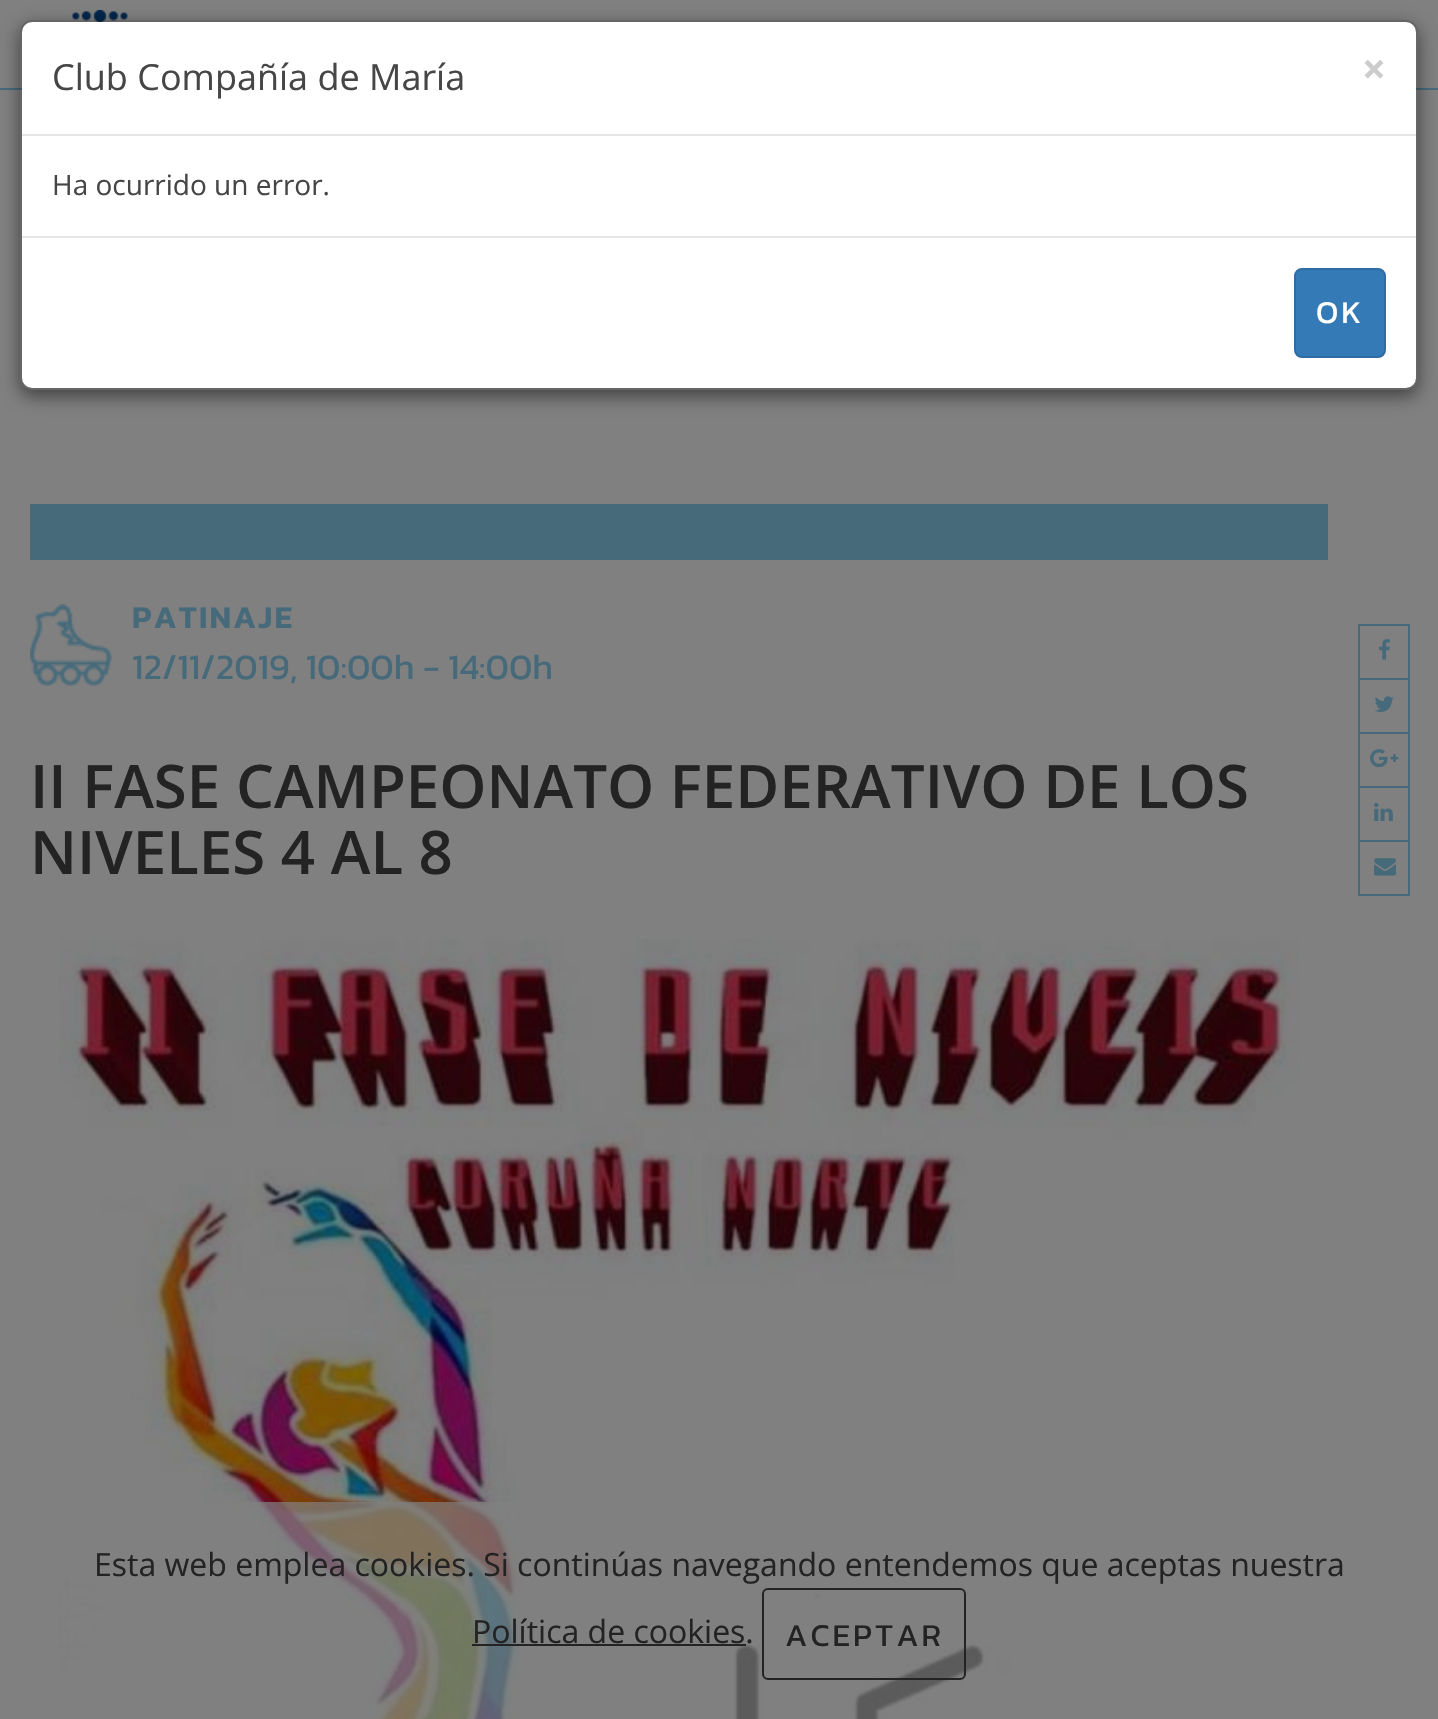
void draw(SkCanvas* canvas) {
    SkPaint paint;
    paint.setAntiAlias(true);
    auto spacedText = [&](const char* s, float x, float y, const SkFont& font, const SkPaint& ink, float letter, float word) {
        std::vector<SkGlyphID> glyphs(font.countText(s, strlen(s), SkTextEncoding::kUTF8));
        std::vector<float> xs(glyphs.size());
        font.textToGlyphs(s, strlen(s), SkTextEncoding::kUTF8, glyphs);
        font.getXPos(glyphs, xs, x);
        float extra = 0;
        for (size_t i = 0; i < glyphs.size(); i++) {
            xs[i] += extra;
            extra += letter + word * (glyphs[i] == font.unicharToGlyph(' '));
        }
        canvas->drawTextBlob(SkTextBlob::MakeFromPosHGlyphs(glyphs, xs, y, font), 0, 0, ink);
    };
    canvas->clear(0xFF808080);
    canvas->drawImageRect(SkImages::DeferredFromEncodedData(SkData::MakeFromFileName("img1.png")), SkRect::MakeXYWH(71, 10, 57, 12), SkSamplingOptions());
    paint.setColor(0xFF476A7B);
    canvas->drawRect(SkRect::MakeXYWH(0, 88, 1438, 2), paint);
    canvas->save();
    canvas->clipPath(SkPathBuilder(SkPathFillType::kEvenOdd).moveTo(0, 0).lineTo(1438, 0).lineTo(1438, 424).lineTo(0, 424).close().moveTo(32, 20).lineTo(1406, 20).cubicTo(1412.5f, 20, 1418, 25.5f, 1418, 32).lineTo(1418, 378).cubicTo(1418, 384.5f, 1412.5f, 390, 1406, 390).lineTo(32, 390).cubicTo(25.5f, 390, 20, 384.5f, 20, 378).lineTo(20, 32).cubicTo(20, 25.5f, 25.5f, 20, 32, 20).close().detach(), true);
    paint.setColor(0x80000000);
    paint.setMaskFilter(SkMaskFilter::MakeBlur(kNormal_SkBlurStyle, 9));
    canvas->drawRoundRect(SkRect::MakeXYWH(20, 26, 1398, 370), 12, 12, paint);
    paint.setMaskFilter(nullptr);
    canvas->restore();
    paint.setColor(0xFFFFFFFF);
    canvas->drawRoundRect(SkRect::MakeXYWH(22, 22, 1394, 366), 10, 10, paint);
    paint.setStyle(SkPaint::kStroke_Style);
    paint.setStrokeWidth(2);
    paint.setColor(0x33000000);
    canvas->drawRoundRect(SkRect::MakeXYWH(21, 21, 1396, 368), 11, 11, paint);
    paint.setStyle(SkPaint::kFill_Style);
    paint.setColor(0xFFE5E5E5);
    canvas->drawRect(SkRect::MakeXYWH(22, 134, 1394, 2), paint);
    SkFont font1(fontMgr->matchFamilyStyle("Open Sans", SkFontStyle::Normal()), 36);
    font1.setSubpixel(true);
    paint.setColor(0xFF464646);
    canvas->drawString("Club Compañía de María", 52, 90, font1, paint);
    SkFont font2(fontMgr->matchFamilyStyle("Open Sans", SkFontStyle::Bold()), 42);
    font2.setSubpixel(true);
    paint.setColor(0xFFCCCCCC);
    canvas->drawString("×", 1362, 84, font2, paint);
    SkFont font3(fontMgr->matchFamilyStyle("Open Sans", SkFontStyle::Normal()), 28);
    font3.setSubpixel(true);
    paint.setColor(0xFF464646);
    canvas->drawString("Ha ocurrido un error.", 52, 195, font3, paint);
    paint.setColor(0xFFE5E5E5);
    canvas->drawRect(SkRect::MakeXYWH(22, 236, 1394, 2), paint);
    paint.setColor(0xFF337AB7);
    canvas->drawRoundRect(SkRect::MakeXYWH(1295, 269, 90, 88), 7, 7, paint);
    paint.setStyle(SkPaint::kStroke_Style);
    paint.setColor(0xFF2E6DA4);
    canvas->drawRoundRect(SkRect::MakeXYWH(1295, 269, 90, 88), 7, 7, paint);
    SkFont font4(fontMgr->matchFamilyStyle("Kanit", SkFontStyle::Normal()), 32);
    font4.setSubpixel(true);
    paint.setStyle(SkPaint::kFill_Style);
    paint.setColor(0xFFFFFFFF);
    spacedText("OK", 1316, 323, font4, paint, 3, 0);
    paint.setColor(0xFF476A7B);
    canvas->drawRect(SkRect::MakeXYWH(30, 504, 1298, 56), paint);
    canvas->drawImageRect(SkImages::DeferredFromEncodedData(SkData::MakeFromFileName("img2.png")), SkRect::MakeXYWH(30, 604, 82, 82), SkSamplingOptions());
    SkFont font5(fontMgr->matchFamilyStyle("Kanit", SkFontStyle(600, SkFontStyle::kNormal_Width, SkFontStyle::kUpright_Slant)), 32);
    font5.setSubpixel(true);
    spacedText("PATINAJE", 132, 628, font5, paint, 2, 0);
    SkFont font6(fontMgr->matchFamilyStyle("Kanit", SkFontStyle::Normal()), 36);
    font6.setSubpixel(true);
    canvas->drawString("12/11/2019, 10:00h - 14:00h", 132, 679, font6, paint);
    paint.setStyle(SkPaint::kStroke_Style);
    canvas->drawRect(SkRect::MakeXYWH(1359, 625, 50, 54), paint);
    canvas->drawImageRect(SkImages::DeferredFromEncodedData(SkData::MakeFromFileName("img3.png")), SkRect::MakeXYWH(1379, 639, 11, 21), SkSamplingOptions());
    canvas->drawRect(SkRect::MakeXYWH(1359, 679, 50, 54), paint);
    canvas->drawImageRect(SkImages::DeferredFromEncodedData(SkData::MakeFromFileName("img4.png")), SkRect::MakeXYWH(1374, 696, 20, 16), SkSamplingOptions());
    canvas->drawRect(SkRect::MakeXYWH(1359, 733, 50, 54), paint);
    canvas->drawImageRect(SkImages::DeferredFromEncodedData(SkData::MakeFromFileName("img5.png")), SkRect::MakeXYWH(1370, 749, 29, 19), SkSamplingOptions());
    canvas->drawRect(SkRect::MakeXYWH(1359, 787, 50, 54), paint);
    canvas->drawImageRect(SkImages::DeferredFromEncodedData(SkData::MakeFromFileName("img6.png")), SkRect::MakeXYWH(1374, 803, 19, 18), SkSamplingOptions());
    canvas->drawRect(SkRect::MakeXYWH(1359, 841, 50, 54), paint);
    canvas->drawImageRect(SkImages::DeferredFromEncodedData(SkData::MakeFromFileName("img7.png")), SkRect::MakeXYWH(1374, 858, 22, 18), SkSamplingOptions());
    SkFont font7(fontMgr->matchFamilyStyle("Open Sans", SkFontStyle(600, SkFontStyle::kNormal_Width, SkFontStyle::kUpright_Slant)), 60);
    font7.setSubpixel(true);
    paint.setStyle(SkPaint::kFill_Style);
    paint.setColor(0xFF232323);
    canvas->drawString("II FASE CAMPEONATO FEDERATIVO DE LOS", 30, 808, font7, paint);
    canvas->drawString("NIVELES 4 AL 8", 30, 874, font7, paint);
    canvas->drawImageRect(SkImages::DeferredFromEncodedData(SkData::MakeFromFileName("img8.png")), SkRect::MakeXYWH(59, 939, 1240, 780), SkSamplingOptions());
    paint.setColor(0xB3808080);
    canvas->drawRect(SkRect::MakeXYWH(69, 1502, 927, 217), paint);
    SkFont font8(fontMgr->matchFamilyStyle("Open Sans", SkFontStyle::Normal()), 32);
    font8.setSubpixel(true);
    paint.setColor(0xFF232323);
    canvas->drawString("Esta web emplea cookies. Si continúas navegando entendemos que aceptas nuestra", 94, 1576, font8, paint);
    canvas->drawString("Política de cookies.", 472, 1643, font8, paint);
    canvas->drawRect(SkRect::MakeXYWH(472, 1644, 274, 2), paint);
    paint.setStyle(SkPaint::kStroke_Style);
    canvas->drawRoundRect(SkRect::MakeXYWH(763, 1589, 202, 90), 5, 5, paint);
    paint.setStyle(SkPaint::kFill_Style);
    spacedText("ACEPTAR", 785, 1646, font4, paint, 3, 0);
}
